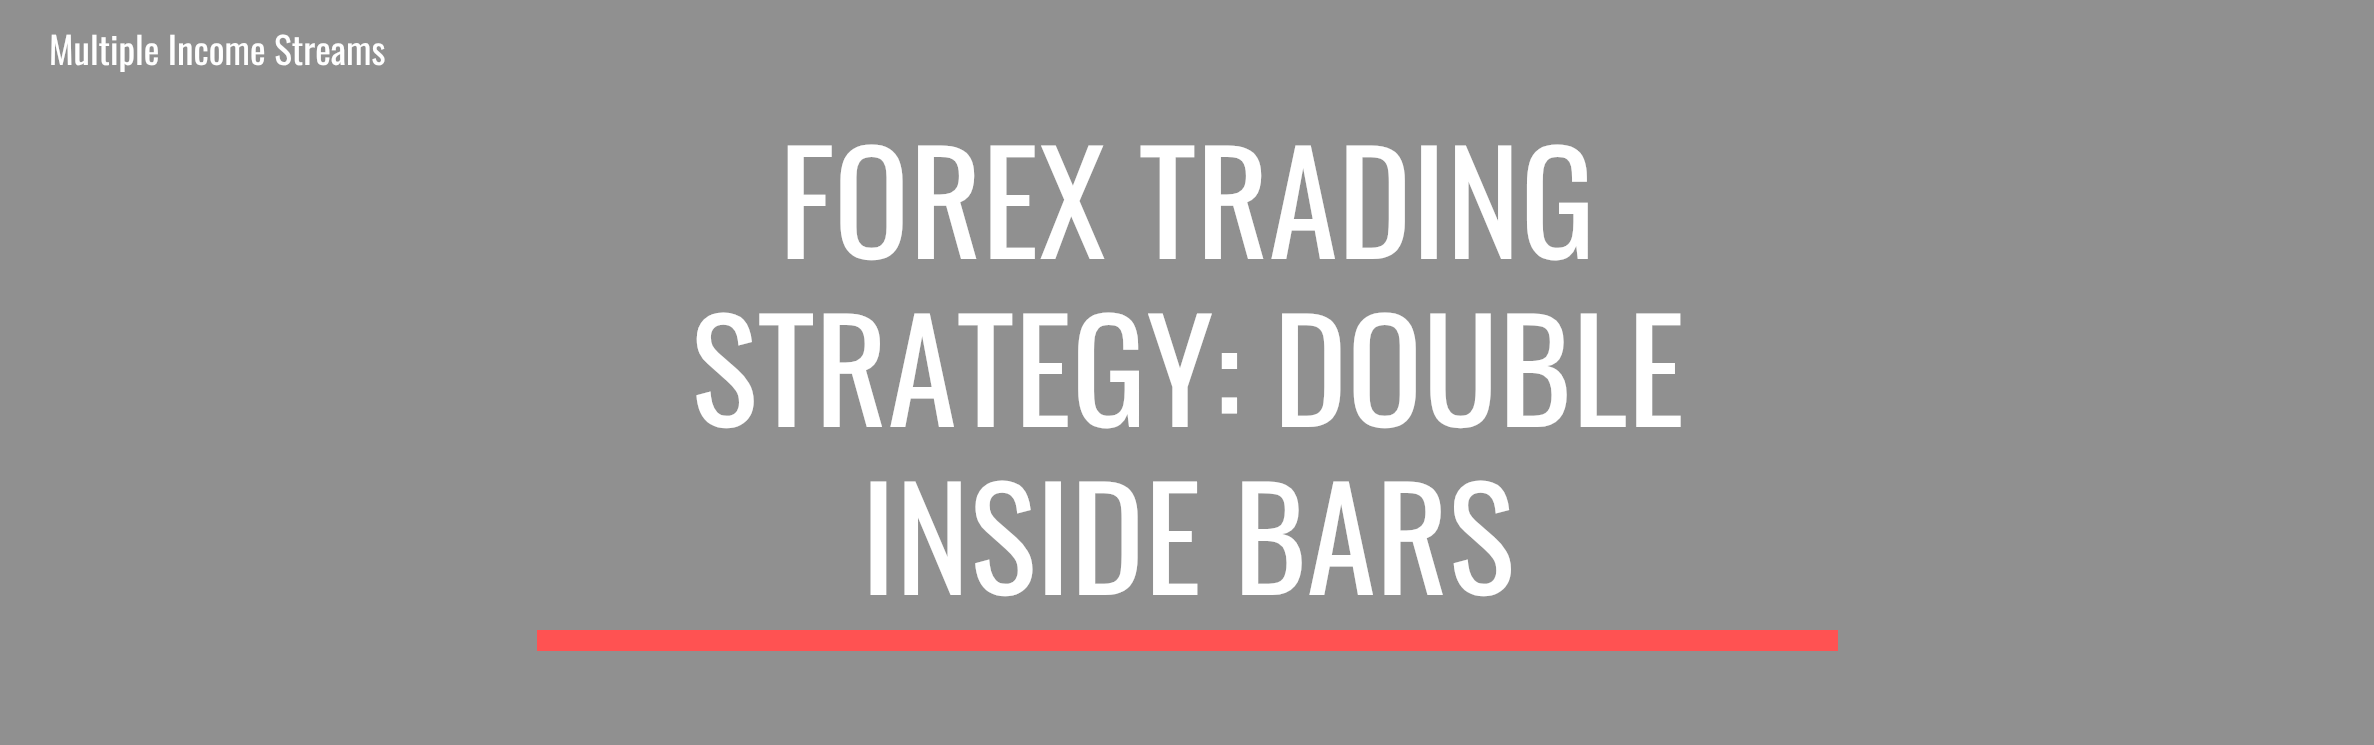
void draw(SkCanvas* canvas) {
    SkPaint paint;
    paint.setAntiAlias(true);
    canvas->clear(0xFF909090);
    SkFont font1(fontMgr->matchFamilyStyle("Oswald", SkFontStyle::Normal()), 37.25f);
    font1.setSubpixel(true);
    paint.setColor(0xFFFFFFFF);
    canvas->drawString("Multiple Income Streams", 49, 65, font1, paint);
    SkFont font2(fontMgr->matchFamilyStyle("Oswald", SkFontStyle::Normal()), 140);
    font2.setSubpixel(true);
    canvas->drawString("FOREX TRADING", 779, 259, font2, paint);
    canvas->drawString("STRATEGY: DOUBLE", 691, 427, font2, paint);
    canvas->drawString("INSIDE BARS", 861, 595, font2, paint);
    paint.setColor(0xFFFF5252);
    canvas->drawRect(SkRect::MakeXYWH(537, 630, 1301, 21), paint);
}
